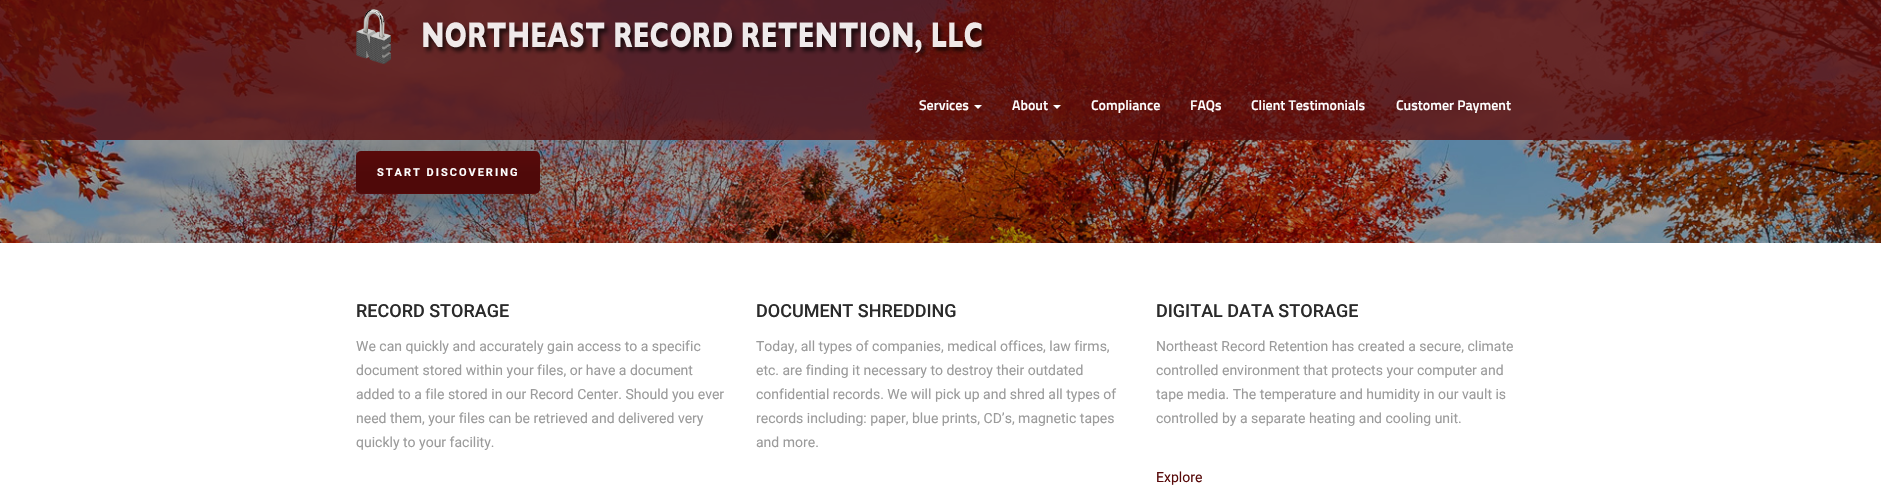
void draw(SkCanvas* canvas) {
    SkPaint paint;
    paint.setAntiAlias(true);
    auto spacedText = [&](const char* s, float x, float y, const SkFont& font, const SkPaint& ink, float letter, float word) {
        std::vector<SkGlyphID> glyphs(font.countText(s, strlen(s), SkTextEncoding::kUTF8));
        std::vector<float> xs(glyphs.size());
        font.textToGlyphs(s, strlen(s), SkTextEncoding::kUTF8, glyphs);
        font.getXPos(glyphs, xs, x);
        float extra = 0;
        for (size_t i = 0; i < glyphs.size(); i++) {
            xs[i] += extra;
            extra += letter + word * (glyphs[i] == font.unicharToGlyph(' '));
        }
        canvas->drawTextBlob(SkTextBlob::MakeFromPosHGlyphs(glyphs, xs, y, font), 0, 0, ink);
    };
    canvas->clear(0xFFFFFFFF);
    canvas->drawImageRect(SkImages::DeferredFromEncodedData(SkData::MakeFromFileName("img3.png")), SkRect::MakeXYWH(0, 0, 1881, 243), SkSamplingOptions());
    canvas->save();
    canvas->clipRect(SkRect::MakeXYWH(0, 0, 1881, 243));
    paint.setColor(0x4D000000);
    paint.setMaskFilter(SkMaskFilter::MakeBlur(kNormal_SkBlurStyle, 25));
    canvas->drawRoundRect(SkRect::MakeXYWH(356, 161, 184, 43), 5, 5, paint);
    paint.setMaskFilter(nullptr);
    canvas->restore();
    paint.setColor(0xCC580A0A);
    canvas->drawRect(SkRect::MakeXYWH(0, 0, 1881, 140), paint);
    canvas->drawImageRect(SkImages::DeferredFromEncodedData(SkData::MakeFromFileName("img1.png")), SkRect::MakeXYWH(356, 9, 35, 55), SkSamplingOptions());
    canvas->drawImageRect(SkImages::DeferredFromEncodedData(SkData::MakeFromFileName("img2.png")), SkRect::MakeXYWH(423, 22, 565, 37), SkSamplingOptions());
    SkFont font1(fontMgr->matchFamilyStyle("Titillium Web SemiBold", SkFontStyle(600, SkFontStyle::kNormal_Width, SkFontStyle::kUpright_Slant)), 14);
    font1.setSubpixel(true);
    paint.setColor(0xFFFFFFFF);
    canvas->drawString("Services", 919, 110, font1, paint);
    canvas->drawPath(SkPathBuilder().moveTo(974, 105).lineTo(982, 105).lineTo(978, 109).close().detach(), paint);
    canvas->drawString("About", 1012, 110, font1, paint);
    canvas->drawPath(SkPathBuilder().moveTo(1053, 105).lineTo(1061, 105).lineTo(1057, 109).close().detach(), paint);
    canvas->drawString("Compliance", 1091, 110, font1, paint);
    canvas->drawString("FAQs", 1190, 110, font1, paint);
    canvas->drawString("Client Testimonials", 1251, 110, font1, paint);
    canvas->drawString("Customer Payment", 1396, 110, font1, paint);
    paint.setColor(0xFF580A0A);
    canvas->drawRoundRect(SkRect::MakeXYWH(356, 151, 184, 43), 5, 5, paint);
    canvas->save();
    canvas->clipPath(SkPathBuilder().moveTo(361, 151).lineTo(535, 151).cubicTo(538, 151, 540, 153, 540, 156).lineTo(540, 189).cubicTo(540, 192, 538, 194, 535, 194).lineTo(361, 194).cubicTo(358, 194, 356, 192, 356, 189).lineTo(356, 156).cubicTo(356, 153, 358, 151, 361, 151).close().detach(), true);
    {
        const SkColor colors[] = {0x00000000, 0x1A000000, 0x1A000000};
        const float stops[] = {0, 0.5f, 1};
        const SkPoint ends[] = {{539, 152}, {539, 193}};
        paint.setShader(SkGradientShader::MakeLinear(ends, colors, stops, 3, SkTileMode::kClamp));
        paint.setAlpha(255);
    }
    canvas->drawRect(SkRect::MakeXYWH(356, 156, 184, 37), paint);
    canvas->restore();
    SkFont font2(fontMgr->matchFamilyStyle("Roboto", SkFontStyle::Bold()), 11);
    font2.setSubpixel(true);
    paint.setShader(nullptr);
    paint.setColor(0xFFFFFFFF);
    spacedText("START DISCOVERING", 377, 176, font2, paint, 2, 0);
    SkFont font3(fontMgr->matchFamilyStyle("Roboto", SkFontStyle(500, SkFontStyle::kNormal_Width, SkFontStyle::kUpright_Slant)), 18);
    font3.setSubpixel(true);
    paint.setColor(0xFF2A2A2A);
    canvas->drawString("RECORD STORAGE", 356, 317, font3, paint);
    SkFont font4(fontMgr->matchFamilyStyle("Roboto", SkFontStyle::Normal()), 14);
    font4.setSubpixel(true);
    paint.setColor(0xFF9B9B9B);
    canvas->drawString("We can quickly and accurately gain access to a specific", 356, 351, font4, paint);
    canvas->drawString("document stored within your files, or have a document", 356, 375, font4, paint);
    canvas->drawString("added to a file stored in our Record Center. Should you ever", 356, 399, font4, paint);
    canvas->drawString("need them, your files can be retrieved and delivered very", 356, 423, font4, paint);
    canvas->drawString("quickly to your facility.", 356, 447, font4, paint);
    paint.setColor(0xFF2A2A2A);
    canvas->drawString("DOCUMENT SHREDDING", 756, 317, font3, paint);
    paint.setColor(0xFF9B9B9B);
    canvas->drawString("Today, all types of companies, medical offices, law firms,", 756, 351, font4, paint);
    canvas->drawString("etc. are finding it necessary to destroy their outdated", 756, 375, font4, paint);
    canvas->drawString("confidential records. We will pick up and shred all types of", 756, 399, font4, paint);
    canvas->drawString("records including: paper, blue prints, CD’s, magnetic tapes", 756, 423, font4, paint);
    canvas->drawString("and more.", 756, 447, font4, paint);
    paint.setColor(0xFF2A2A2A);
    canvas->drawString("DIGITAL DATA STORAGE", 1156, 317, font3, paint);
    paint.setColor(0xFF9B9B9B);
    canvas->drawString("Northeast Record Retention has created a secure, climate", 1156, 351, font4, paint);
    canvas->drawString("controlled environment that protects your computer and", 1156, 375, font4, paint);
    canvas->drawString("tape media. The temperature and humidity in our vault is", 1156, 399, font4, paint);
    canvas->drawString("controlled by a separate heating and cooling unit.", 1156, 423, font4, paint);
    paint.setColor(0xFF580A0A);
    canvas->drawString("Explore", 1156, 482, font4, paint);
}
